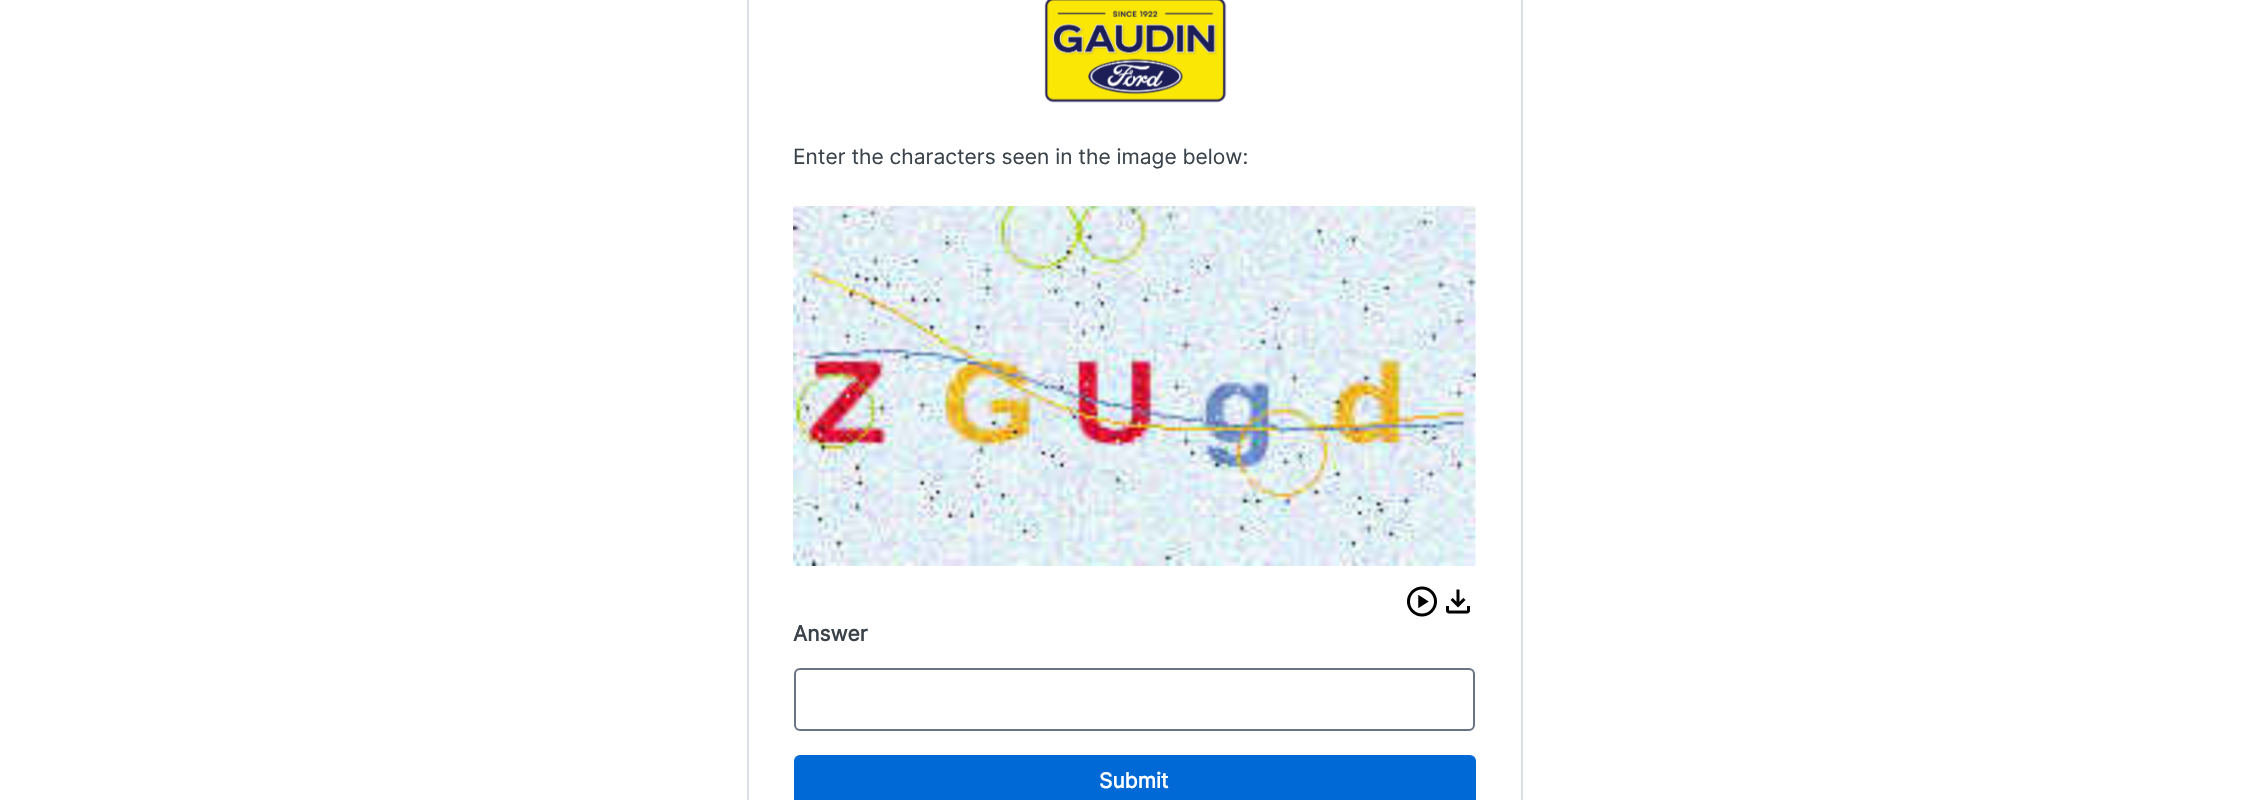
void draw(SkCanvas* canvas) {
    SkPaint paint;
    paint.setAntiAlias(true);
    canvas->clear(0xFFFFFFFF);
    paint.setStyle(SkPaint::kStroke_Style);
    paint.setStrokeWidth(2);
    paint.setColor(0xFFDCE0E4);
    canvas->drawRect(SkRect::MakeXYWH(748, -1, 774, 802), paint);
    canvas->drawImageRect(SkImages::DeferredFromEncodedData(SkData::MakeFromFileName("img1.png")), SkRect::MakeXYWH(1044, 0, 183, 103), SkSamplingOptions());
    SkFont font1(fontMgr->matchFamilyStyle("Inter", SkFontStyle::Normal()), 21);
    font1.setSubpixel(true);
    paint.setStyle(SkPaint::kFill_Style);
    paint.setColor(0xFF3A424A);
    canvas->drawString("Enter the characters seen in the image below:", 793, 164, font1, paint);
    canvas->drawImageRect(SkImages::DeferredFromEncodedData(SkData::MakeFromFileName("img2.png")), SkRect::MakeXYWH(793, 206, 683, 360), SkSamplingOptions());
    canvas->drawImageRect(SkImages::DeferredFromEncodedData(SkData::MakeFromFileName("img3.png")), SkRect::MakeXYWH(1407, 586, 30, 31), SkSamplingOptions());
    canvas->drawImageRect(SkImages::DeferredFromEncodedData(SkData::MakeFromFileName("img4.png")), SkRect::MakeXYWH(1446, 589, 24, 25), SkSamplingOptions());
    SkFont font2(fontMgr->matchFamilyStyle("Inter", SkFontStyle::Bold()), 21);
    font2.setSubpixel(true);
    canvas->drawString("Answer", 793, 641, font2, paint);
    paint.setStyle(SkPaint::kStroke_Style);
    paint.setColor(0xFF677483);
    canvas->drawRoundRect(SkRect::MakeXYWH(795, 669, 679, 61), 5, 5, paint);
    paint.setStyle(SkPaint::kFill_Style);
    paint.setColor(0xFF0069D6);
    canvas->drawRoundRect(SkRect::MakeXYWH(794, 755, 682, 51), 6, 6, paint);
    paint.setColor(0xFFFFFFFF);
    canvas->drawString("Submit", 1099, 788, font2, paint);
}
